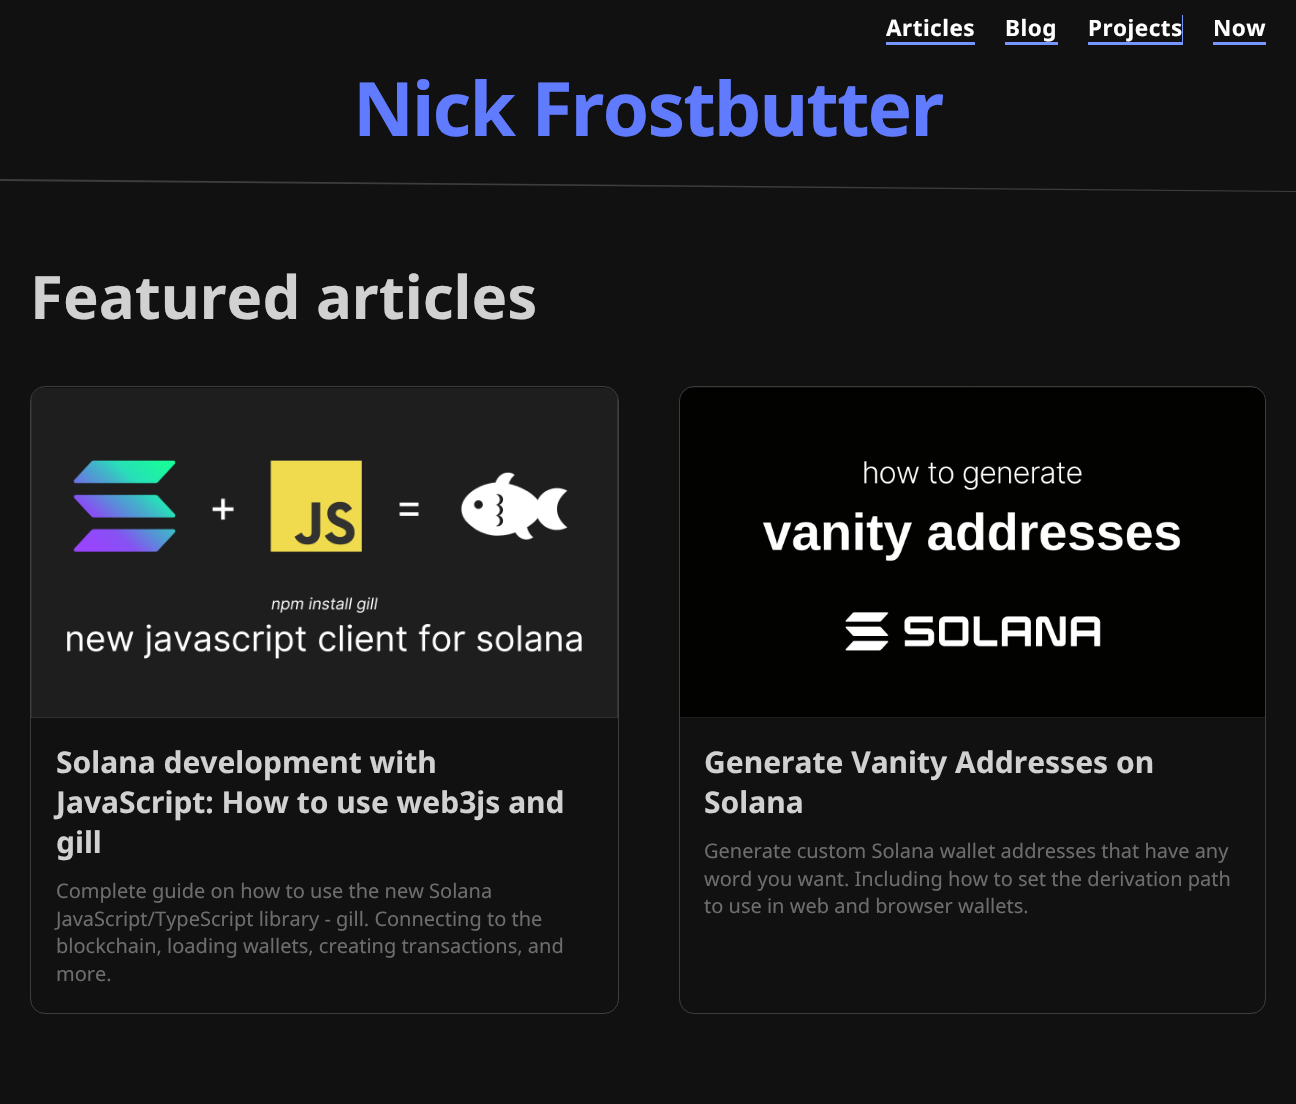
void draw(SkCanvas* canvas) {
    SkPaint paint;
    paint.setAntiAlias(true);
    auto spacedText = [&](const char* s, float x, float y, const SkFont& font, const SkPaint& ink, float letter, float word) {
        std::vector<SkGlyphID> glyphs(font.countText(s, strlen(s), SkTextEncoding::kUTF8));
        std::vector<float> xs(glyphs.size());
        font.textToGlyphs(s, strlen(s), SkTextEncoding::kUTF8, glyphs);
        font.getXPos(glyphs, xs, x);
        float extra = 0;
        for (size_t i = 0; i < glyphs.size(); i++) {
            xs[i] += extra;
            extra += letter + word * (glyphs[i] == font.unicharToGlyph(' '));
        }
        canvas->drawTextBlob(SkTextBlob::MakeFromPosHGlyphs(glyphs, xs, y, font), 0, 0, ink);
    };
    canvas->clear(0xFF111111);
    SkFont font1(fontMgr->matchFamilyStyle("Noto Sans", SkFontStyle::Bold()), 22.5f);
    font1.setSubpixel(true);
    paint.setColor(0xFFFFFFFF);
    spacedText("Articles", 886, 36, font1, paint, 0.5f, 0);
    paint.setColor(0xFF7596FF);
    canvas->drawPath(SkPathBuilder().moveTo(886, 15).lineTo(886, 45).lineTo(975, 45).lineTo(975, 42).lineTo(886, 42).close().detach(), paint);
    paint.setColor(0xFFFFFFFF);
    spacedText("Blog", 1005, 36, font1, paint, 0.5f, 0);
    paint.setColor(0xFF7596FF);
    canvas->drawPath(SkPathBuilder().moveTo(1005, 42).lineTo(1005, 45).lineTo(1058, 45).lineTo(1058, 15).lineTo(1058, 42).close().detach(), paint);
    canvas->drawPath(SkPathBuilder().moveTo(1088, 42).lineTo(1088, 45).lineTo(1183, 45).lineTo(1183, 15).lineTo(1182, 15).lineTo(1182, 42).close().detach(), paint);
    paint.setColor(0xFFFFFFFF);
    spacedText("Projects", 1088, 36, font1, paint, 0.5f, 0);
    spacedText("Now", 1213, 36, font1, paint, 0.5f, 0);
    paint.setColor(0xFF7596FF);
    canvas->drawRect(SkRect::MakeXYWH(1213, 42, 53, 3), paint);
    SkFont font2(fontMgr->matchFamilyStyle("Noto Sans", SkFontStyle::Bold()), 75);
    font2.setSubpixel(true);
    paint.setColor(0xFF617BFF);
    spacedText("Nick Frostbutter", 353, 136, font2, paint, -1.9f, 0);
    paint.setColor(0xFF3D3D3D);
    canvas->drawPath(SkPathBuilder().moveTo(0, 179).lineTo(1296, 191).lineTo(1296, 192).lineTo(0, 181).close().detach(), paint);
    SkFont font3(fontMgr->matchFamilyStyle("Noto Sans", SkFontStyle::Bold()), 60);
    font3.setSubpixel(true);
    paint.setColor(0xFFD1D1D1);
    canvas->drawString("Featured articles", 30, 319, font3, paint);
    paint.setStyle(SkPaint::kStroke_Style);
    paint.setStrokeWidth(1);
    paint.setColor(0xFF3D3D3D);
    canvas->drawRoundRect(SkRect::MakeXYWH(30.5f, 386.5f, 588, 627), 14.5f, 14.5f, paint);
    paint.setStyle(SkPaint::kFill_Style);
    canvas->drawPath(SkPathBuilder().moveTo(45, 388).lineTo(604, 388).cubicTo(611.5f, 388, 618, 394.5f, 618, 402).lineTo(618, 718).lineTo(31, 718).lineTo(31, 402).cubicTo(31, 394.5f, 37.5f, 388, 45, 388).close().detach(), paint);
    canvas->drawImageRect(SkImages::DeferredFromEncodedData(SkData::MakeFromFileName("img1.png")), SkRect::MakeXYWH(31, 388, 587, 330), SkSamplingOptions());
    SkFont font4(fontMgr->matchFamilyStyle("Noto Sans", SkFontStyle::Bold()), 30);
    font4.setSubpixel(true);
    paint.setColor(0xFFD1D1D1);
    canvas->drawString("Solana development with", 56, 773, font4, paint);
    canvas->drawString("JavaScript: How to use web3js and", 56, 813, font4, paint);
    canvas->drawString("gill", 56, 853, font4, paint);
    SkFont font5(fontMgr->matchFamilyStyle("Noto Sans", SkFontStyle::Normal()), 20);
    font5.setSubpixel(true);
    paint.setColor(0xFF6D6D6D);
    canvas->drawString("Complete guide on how to use the new Solana", 56, 898, font5, paint);
    canvas->drawString("JavaScript/TypeScript library - gill. Connecting to the", 56, 926, font5, paint);
    canvas->drawString("blockchain, loading wallets, creating transactions, and", 56, 953, font5, paint);
    canvas->drawString("more.", 56, 981, font5, paint);
    paint.setStyle(SkPaint::kStroke_Style);
    paint.setColor(0xFF3D3D3D);
    canvas->drawRoundRect(SkRect::MakeXYWH(679.5f, 386.5f, 586, 627), 14.5f, 14.5f, paint);
    paint.setStyle(SkPaint::kFill_Style);
    canvas->drawPath(SkPathBuilder().moveTo(694, 388).lineTo(1251, 388).cubicTo(1258.5f, 388, 1265, 394.5f, 1265, 402).lineTo(1265, 718).lineTo(680, 718).lineTo(680, 402).cubicTo(680, 394.5f, 686.5f, 388, 694, 388).close().detach(), paint);
    canvas->drawImageRect(SkImages::DeferredFromEncodedData(SkData::MakeFromFileName("img2.png")), SkRect::MakeXYWH(680, 387, 585, 331), SkSamplingOptions());
    paint.setColor(0xFFD1D1D1);
    canvas->drawString("Generate Vanity Addresses on", 704, 773, font4, paint);
    canvas->drawString("Solana", 704, 813, font4, paint);
    paint.setColor(0xFF6D6D6D);
    canvas->drawString("Generate custom Solana wallet addresses that have any", 704, 858, font5, paint);
    canvas->drawString("word you want. Including how to set the derivation path", 704, 886, font5, paint);
    canvas->drawString("to use in web and browser wallets.", 704, 913, font5, paint);
}
